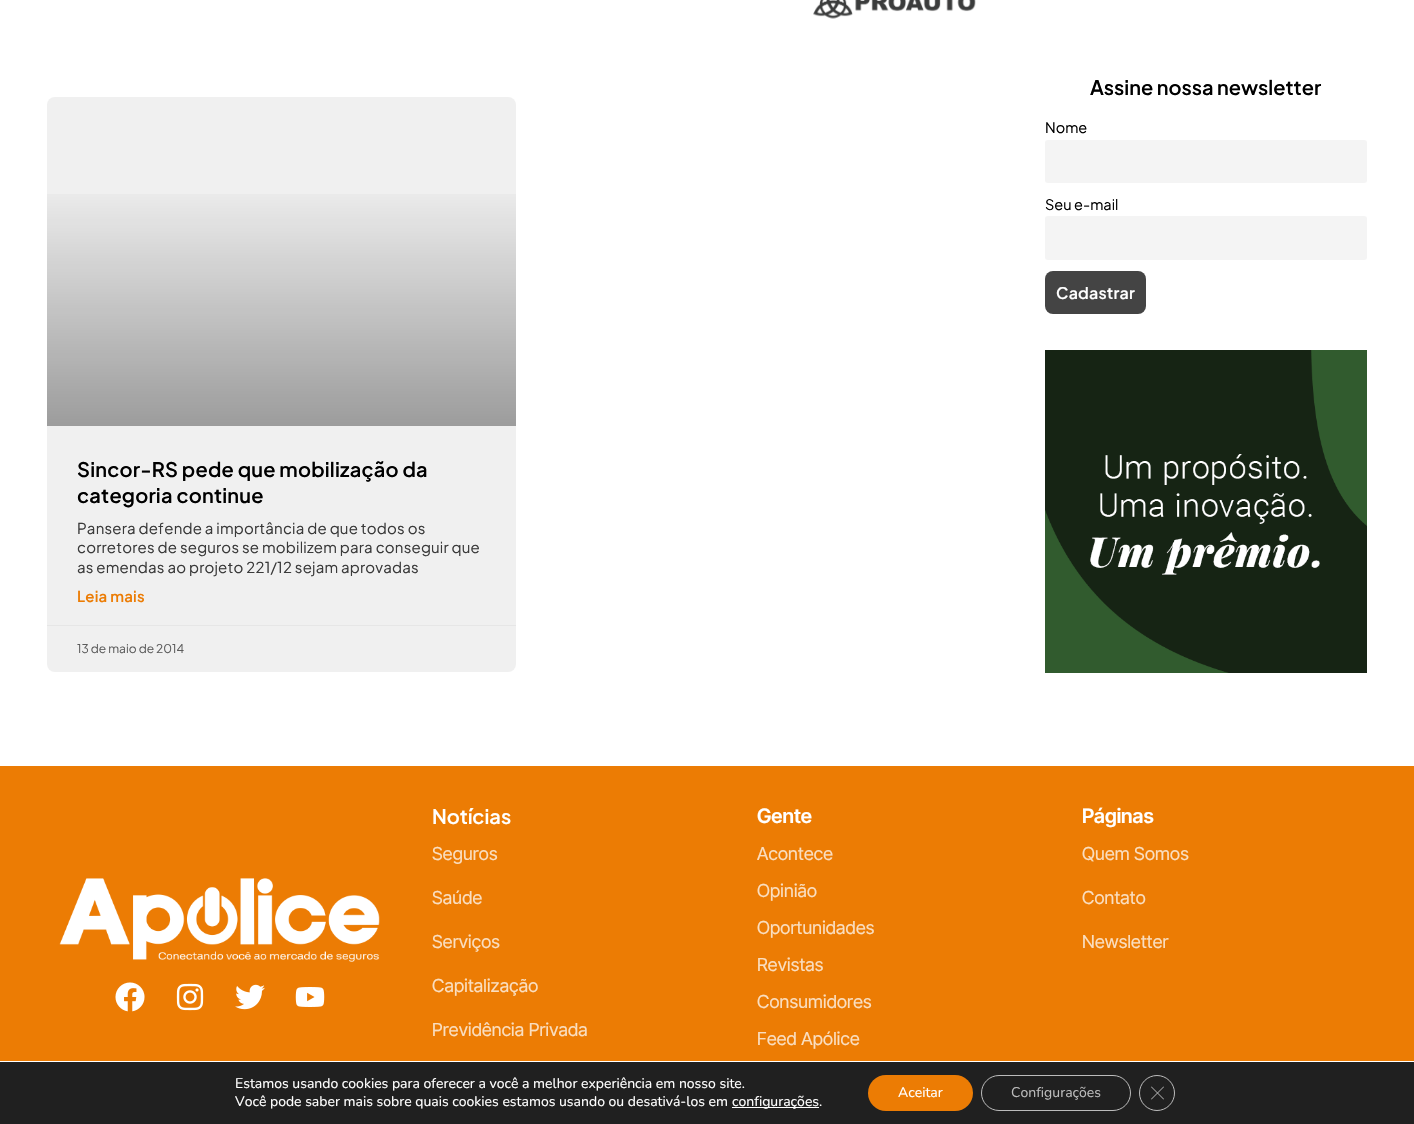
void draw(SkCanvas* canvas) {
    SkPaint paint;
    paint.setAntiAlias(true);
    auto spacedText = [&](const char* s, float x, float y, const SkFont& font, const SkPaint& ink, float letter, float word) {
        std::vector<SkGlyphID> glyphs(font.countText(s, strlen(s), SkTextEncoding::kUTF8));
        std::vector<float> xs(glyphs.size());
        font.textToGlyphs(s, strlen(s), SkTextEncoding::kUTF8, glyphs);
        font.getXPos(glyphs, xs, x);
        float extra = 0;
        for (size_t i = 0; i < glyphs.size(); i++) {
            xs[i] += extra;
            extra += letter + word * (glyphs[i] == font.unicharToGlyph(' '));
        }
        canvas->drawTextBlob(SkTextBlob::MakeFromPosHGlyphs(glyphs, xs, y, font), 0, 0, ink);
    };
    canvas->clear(0xFFFFFFFF);
    canvas->drawImageRect(SkImages::DeferredFromEncodedData(SkData::MakeFromFileName("img1.png")), SkRect::MakeXYWH(813, 0, 163, 19), SkSamplingOptions());
    SkFont font1(fontMgr->matchFamilyStyle("Plus Jakarta Sans", SkFontStyle(600, SkFontStyle::kNormal_Width, SkFontStyle::kUpright_Slant)), 20);
    font1.setSubpixel(true);
    paint.setColor(0xFF000000);
    canvas->drawString("Assine nossa newsletter", 1090, 95, font1, paint);
    SkFont font2(fontMgr->matchFamilyStyle("Plus Jakarta Sans", SkFontStyle::Normal()), 14.5f);
    font2.setSubpixel(true);
    canvas->drawString("Nome", 1045, 133, font2, paint);
    paint.setColor(0xFFF4F4F4);
    canvas->drawRoundRect(SkRect::MakeXYWH(1045, 140, 322, 43), 3, 3, paint);
    paint.setColor(0xFF000000);
    canvas->drawString("Seu e-mail", 1045, 210, font2, paint);
    paint.setColor(0xFFF4F4F4);
    canvas->drawRoundRect(SkRect::MakeXYWH(1045, 216, 322, 44), 3, 3, paint);
    paint.setColor(0xFF444444);
    canvas->drawRoundRect(SkRect::MakeXYWH(1045, 271, 101, 43), 8, 8, paint);
    SkFont font3(fontMgr->matchFamilyStyle("Plus Jakarta Sans", SkFontStyle(600, SkFontStyle::kNormal_Width, SkFontStyle::kUpright_Slant)), 16);
    font3.setSubpixel(true);
    paint.setColor(0xFFFFFFFF);
    spacedText("Cadastrar", 1056, 299, font3, paint, 0.2f, 0);
    canvas->drawImageRect(SkImages::DeferredFromEncodedData(SkData::MakeFromFileName("img2.png")), SkRect::MakeXYWH(1045, 350, 322, 323), SkSamplingOptions());
    paint.setColor(0xFFF0F0F0);
    canvas->drawRoundRect(SkRect::MakeXYWH(47, 97, 469, 575), 8, 8, paint);
    {
        const SkColor colors[] = {0x59000000, 0x00000000};
        const float stops[] = {0, 0.75f};
        const SkPoint ends[] = {{282, 426}, {282, 97}};
        paint.setShader(SkGradientShader::MakeLinear(ends, colors, stops, 2, SkTileMode::kClamp));
        paint.setAlpha(255);
    }
    canvas->drawRect(SkRect::MakeXYWH(47, 194, 469, 232), paint);
    paint.setShader(nullptr);
    paint.setColor(0xFF000000);
    spacedText("Sincor-RS pede que mobilização da", 77, 477, font1, paint, 0.2f, 0);
    spacedText("categoria continue", 77, 503, font1, paint, 0.2f, 0);
    SkFont font4(fontMgr->matchFamilyStyle("Plus Jakarta Sans", SkFontStyle::Normal()), 15);
    font4.setSubpixel(true);
    paint.setColor(0xFF3A3A3A);
    spacedText("Pansera defende a importância de que todos os", 77, 534, font4, paint, 0.2f, 0);
    spacedText("corretores de seguros se mobilizem para conseguir que", 77, 553, font4, paint, 0.2f, 0);
    spacedText("as emendas ao projeto 221/12 sejam aprovadas", 77, 573, font4, paint, 0.2f, 0);
    SkFont font5(fontMgr->matchFamilyStyle("Plus Jakarta Sans", SkFontStyle(600, SkFontStyle::kNormal_Width, SkFontStyle::kUpright_Slant)), 15);
    font5.setSubpixel(true);
    paint.setColor(0xFFEC7C04);
    spacedText("Leia mais", 77, 602, font5, paint, 0.2f, 0);
    paint.setColor(0xFFE6E6E6);
    canvas->drawRect(SkRect::MakeXYWH(47, 625, 469, 1), paint);
    SkFont font6(fontMgr->matchFamilyStyle("Plus Jakarta Sans", SkFontStyle::Normal()), 12);
    font6.setSubpixel(true);
    paint.setColor(0xFF5C5C5C);
    canvas->drawString("13 de maio de 2014", 77, 653, font6, paint);
    paint.setColor(0xFFEC7C04);
    canvas->drawRect(SkRect::MakeXYWH(0, 766, 1414, 295), paint);
    canvas->drawImageRect(SkImages::DeferredFromEncodedData(SkData::MakeFromFileName("img3.png")), SkRect::MakeXYWH(59, 878, 321, 84), SkSamplingOptions());
    canvas->drawImageRect(SkImages::DeferredFromEncodedData(SkData::MakeFromFileName("img4.png")), SkRect::MakeXYWH(115, 982, 30, 30), SkSamplingOptions());
    canvas->drawImageRect(SkImages::DeferredFromEncodedData(SkData::MakeFromFileName("img5.png")), SkRect::MakeXYWH(176, 983, 28, 28), SkSamplingOptions());
    canvas->drawImageRect(SkImages::DeferredFromEncodedData(SkData::MakeFromFileName("img6.png")), SkRect::MakeXYWH(235, 984, 30, 26), SkSamplingOptions());
    canvas->drawImageRect(SkImages::DeferredFromEncodedData(SkData::MakeFromFileName("img7.png")), SkRect::MakeXYWH(295, 987, 30, 20), SkSamplingOptions());
    paint.setColor(0xFFFFFFFF);
    canvas->drawString("Notícias", 432, 824, font1, paint);
    SkFont font7(fontMgr->matchFamilyStyle("Inter Tight", SkFontStyle::Normal()), 18);
    font7.setSubpixel(true);
    paint.setColor(0xFFFADEC0);
    spacedText("Seguros", 432, 860, font7, paint, 0.2f, 0);
    spacedText("Saúde", 432, 904, font7, paint, 0.2f, 0);
    spacedText("Serviços", 432, 948, font7, paint, 0.2f, 0);
    spacedText("Capitalização", 432, 992, font7, paint, 0.2f, 0);
    spacedText("Previdência Privada", 432, 1036, font7, paint, 0.2f, 0);
    SkFont font8(fontMgr->matchFamilyStyle("Inter Tight", SkFontStyle(600, SkFontStyle::kNormal_Width, SkFontStyle::kUpright_Slant)), 20);
    font8.setSubpixel(true);
    paint.setColor(0xFFFFFFFF);
    canvas->drawString("Gente", 757, 823, font8, paint);
    paint.setColor(0xFFFADEC0);
    spacedText("Acontece", 757, 860, font7, paint, 0.2f, 0);
    spacedText("Opinião", 757, 897, font7, paint, 0.2f, 0);
    spacedText("Oportunidades", 757, 934, font7, paint, 0.2f, 0);
    spacedText("Revistas", 757, 971, font7, paint, 0.2f, 0);
    spacedText("Consumidores", 757, 1008, font7, paint, 0.2f, 0);
    spacedText("Feed Apólice", 757, 1045, font7, paint, 0.2f, 0);
    paint.setColor(0xFFFFFFFF);
    canvas->drawString("Páginas", 1082, 823, font8, paint);
    paint.setColor(0xFFFADEC0);
    spacedText("Quem Somos", 1082, 860, font7, paint, 0.2f, 0);
    spacedText("Contato", 1082, 904, font7, paint, 0.2f, 0);
    spacedText("Newsletter", 1082, 948, font7, paint, 0.2f, 0);
    paint.setColor(0xFF202020);
    canvas->drawRect(SkRect::MakeXYWH(0, 1062, 1414, 62), paint);
    SkFont font9(fontMgr->matchFamilyStyle("Nunito", SkFontStyle::Normal()), 14);
    font9.setSubpixel(true);
    paint.setColor(0xFFFFFFFF);
    canvas->drawString("Estamos usando cookies para oferecer a você a melhor experiência em nosso site.", 235, 1088, font9, paint);
    canvas->drawString("Você pode saber mais sobre quais cookies estamos usando ou desativá-los em", 235, 1106, font9, paint);
    canvas->drawRect(SkRect::MakeXYWH(732, 1107, 87, 1), paint);
    canvas->drawString("configurações.", 732, 1106, font9, paint);
    paint.setColor(0xFFEC7C04);
    canvas->drawRoundRect(SkRect::MakeXYWH(868, 1075, 105, 36), 18, 18, paint);
    paint.setColor(0xFFFFFFFF);
    canvas->drawString("Aceitar", 898, 1097, font9, paint);
    paint.setStyle(SkPaint::kStroke_Style);
    paint.setStrokeWidth(1);
    paint.setColor(0xFFBCBCBC);
    canvas->drawRoundRect(SkRect::MakeXYWH(981.5f, 1075.5f, 149, 35), 17.5f, 17.5f, paint);
    paint.setStyle(SkPaint::kFill_Style);
    canvas->drawString("Configurações", 1011, 1097, font9, paint);
    paint.setStyle(SkPaint::kStroke_Style);
    canvas->drawCircle(1157, 1093, 17.5f, paint);
    paint.setStyle(SkPaint::kFill_Style);
    canvas->drawPath(SkPathBuilder().moveTo(1163.5f, 1086.5f).lineTo(1164, 1087).lineTo(1151.5f, 1099.5f).lineTo(1151, 1099).close().detach(), paint);
    canvas->drawPath(SkPathBuilder().moveTo(1151, 1087).lineTo(1151.5f, 1086.5f).lineTo(1164, 1099).lineTo(1163.5f, 1099.5f).close().detach(), paint);
}
